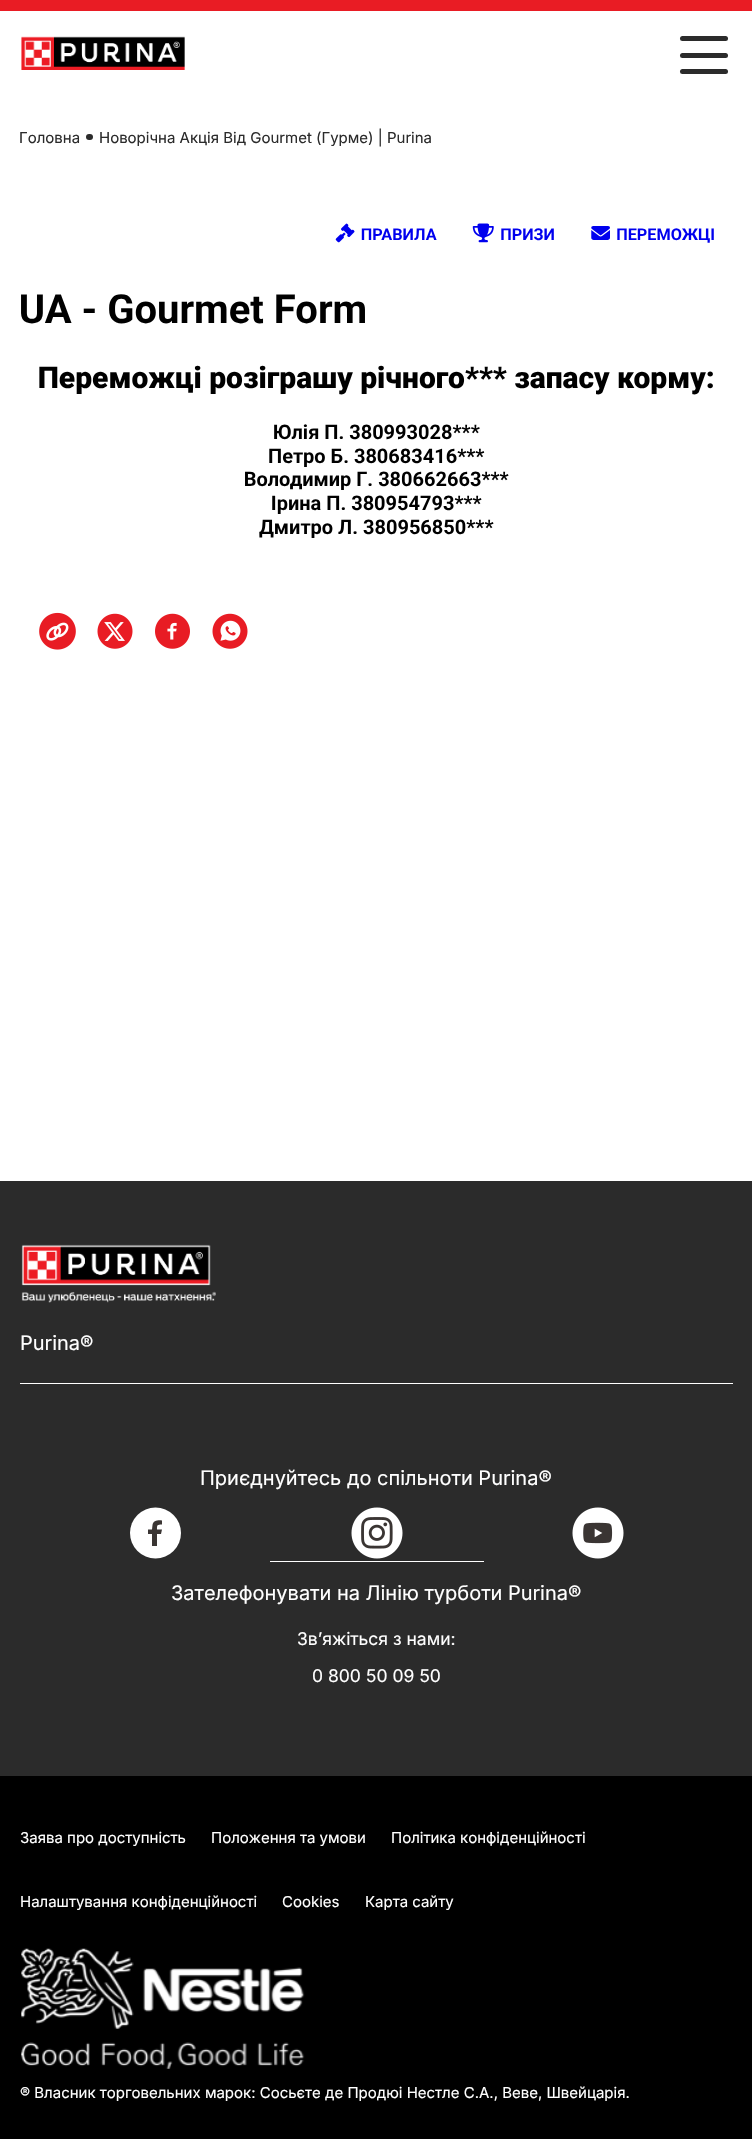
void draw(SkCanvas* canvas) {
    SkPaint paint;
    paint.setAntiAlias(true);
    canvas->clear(0xFFFFFFFF);
    paint.setColor(0xFFE91C24);
    canvas->drawRect(SkRect::MakeXYWH(0, 0, 752, 11), paint);
    canvas->drawImageRect(SkImages::DeferredFromEncodedData(SkData::MakeFromFileName("img1.png")), SkRect::MakeXYWH(21, 36, 164, 34), SkSamplingOptions());
    paint.setColor(0xFF2B2B2B);
    canvas->drawRoundRect(SkRect::MakeXYWH(680, 36, 48, 5), 2.5f, 2.5f, paint);
    canvas->drawRoundRect(SkRect::MakeXYWH(680, 53, 48, 5), 2.5f, 2.5f, paint);
    canvas->drawRoundRect(SkRect::MakeXYWH(680, 69, 48, 5), 2.5f, 2.5f, paint);
    SkFont font1(fontMgr->matchFamilyStyle("Inter", SkFontStyle::Normal()), 15);
    font1.setSubpixel(true);
    canvas->drawString("Головна", 19, 143, font1, paint);
    canvas->drawRoundRect(SkRect::MakeXYWH(86, 134, 7, 6), 3, 3, paint);
    canvas->drawString("Новорічна Акція Від Gourmet (Гурме) | Purina", 99, 143, font1, paint);
    canvas->drawImageRect(SkImages::DeferredFromEncodedData(SkData::MakeFromFileName("img2.png")), SkRect::MakeXYWH(21, 223, 693, 315), SkSamplingOptions());
    canvas->drawImageRect(SkImages::DeferredFromEncodedData(SkData::MakeFromFileName("img3.png")), SkRect::MakeXYWH(39, 612, 37, 38), SkSamplingOptions());
    canvas->drawImageRect(SkImages::DeferredFromEncodedData(SkData::MakeFromFileName("img4.png")), SkRect::MakeXYWH(97, 613, 36, 36), SkSamplingOptions());
    canvas->drawImageRect(SkImages::DeferredFromEncodedData(SkData::MakeFromFileName("img5.png")), SkRect::MakeXYWH(155, 613, 35, 36), SkSamplingOptions());
    canvas->drawImageRect(SkImages::DeferredFromEncodedData(SkData::MakeFromFileName("img6.png")), SkRect::MakeXYWH(212, 613, 36, 36), SkSamplingOptions());
    canvas->drawRect(SkRect::MakeXYWH(0, 1181, 752, 595), paint);
    canvas->drawImageRect(SkImages::DeferredFromEncodedData(SkData::MakeFromFileName("img7.png")), SkRect::MakeXYWH(21, 1244, 195, 59), SkSamplingOptions());
    paint.setColor(0xFFFFFFFF);
    canvas->drawRect(SkRect::MakeXYWH(20, 1383, 713, 1), paint);
    SkFont font2(fontMgr->matchFamilyStyle("Inter", SkFontStyle::Normal()), 20);
    font2.setSubpixel(true);
    canvas->drawString("Purina®", 20, 1350, font2, paint);
    canvas->drawString("Приєднуйтесь до спільноти Purina®", 200, 1485, font2, paint);
    canvas->drawCircle(155.5f, 1533, 25.5f, paint);
    paint.setColor(0xFF3A3533);
    canvas->drawPath(SkPathBuilder(SkPathFillType::kEvenOdd).moveTo(157, 1546).lineTo(157, 1534).lineTo(161, 1534).lineTo(162, 1529.5f).lineTo(157, 1529.5f).cubicTo(157, 1525, 157, 1524.5f, 162, 1524.5f).lineTo(162, 1520.5f).cubicTo(158, 1520, 153, 1520.5f, 152.5f, 1525).lineTo(152, 1529.5f).lineTo(148, 1529.5f).lineTo(148, 1534).lineTo(152, 1534).lineTo(152, 1546).close().detach(), paint);
    canvas->drawImageRect(SkImages::DeferredFromEncodedData(SkData::MakeFromFileName("img8.png")), SkRect::MakeXYWH(351, 1507, 52, 52), SkSamplingOptions());
    canvas->drawImageRect(SkImages::DeferredFromEncodedData(SkData::MakeFromFileName("img9.png")), SkRect::MakeXYWH(572, 1507, 52, 52), SkSamplingOptions());
    paint.setColor(0xFFFFFFFF);
    canvas->drawRect(SkRect::MakeXYWH(270, 1561, 214, 1), paint);
    canvas->drawString("Зателефонувати на Лінію турботи Purina®", 171, 1600, font2, paint);
    SkFont font3(fontMgr->matchFamilyStyle("Inter", SkFontStyle::Normal()), 17.5f);
    font3.setSubpixel(true);
    canvas->drawString("Зв’яжіться з нами:", 297, 1645, font3, paint);
    canvas->drawString("0 800 50 09 50", 312, 1682, font3, paint);
    paint.setColor(0xFF000000);
    canvas->drawRect(SkRect::MakeXYWH(0, 1776, 752, 363), paint);
    paint.setColor(0xFFFFFFFF);
    canvas->drawString("Заява про доступність", 20, 1843, font1, paint);
    canvas->drawString("Положення та умови", 211, 1843, font1, paint);
    canvas->drawString("Політика конфіденційності", 391, 1843, font1, paint);
    canvas->drawString("Налаштування конфіденційності", 20, 1907, font1, paint);
    canvas->drawString("Cookies", 282, 1907, font1, paint);
    canvas->drawString("Карта сайту", 365, 1907, font1, paint);
    canvas->drawImageRect(SkImages::DeferredFromEncodedData(SkData::MakeFromFileName("img10.png")), SkRect::MakeXYWH(21, 1948, 284, 121), SkSamplingOptions());
    canvas->drawString("® Власник торговельних марок: Сосьєте де Продюі Нестле С.А., Веве, Швейцарія.", 20, 2098, font1, paint);
}
